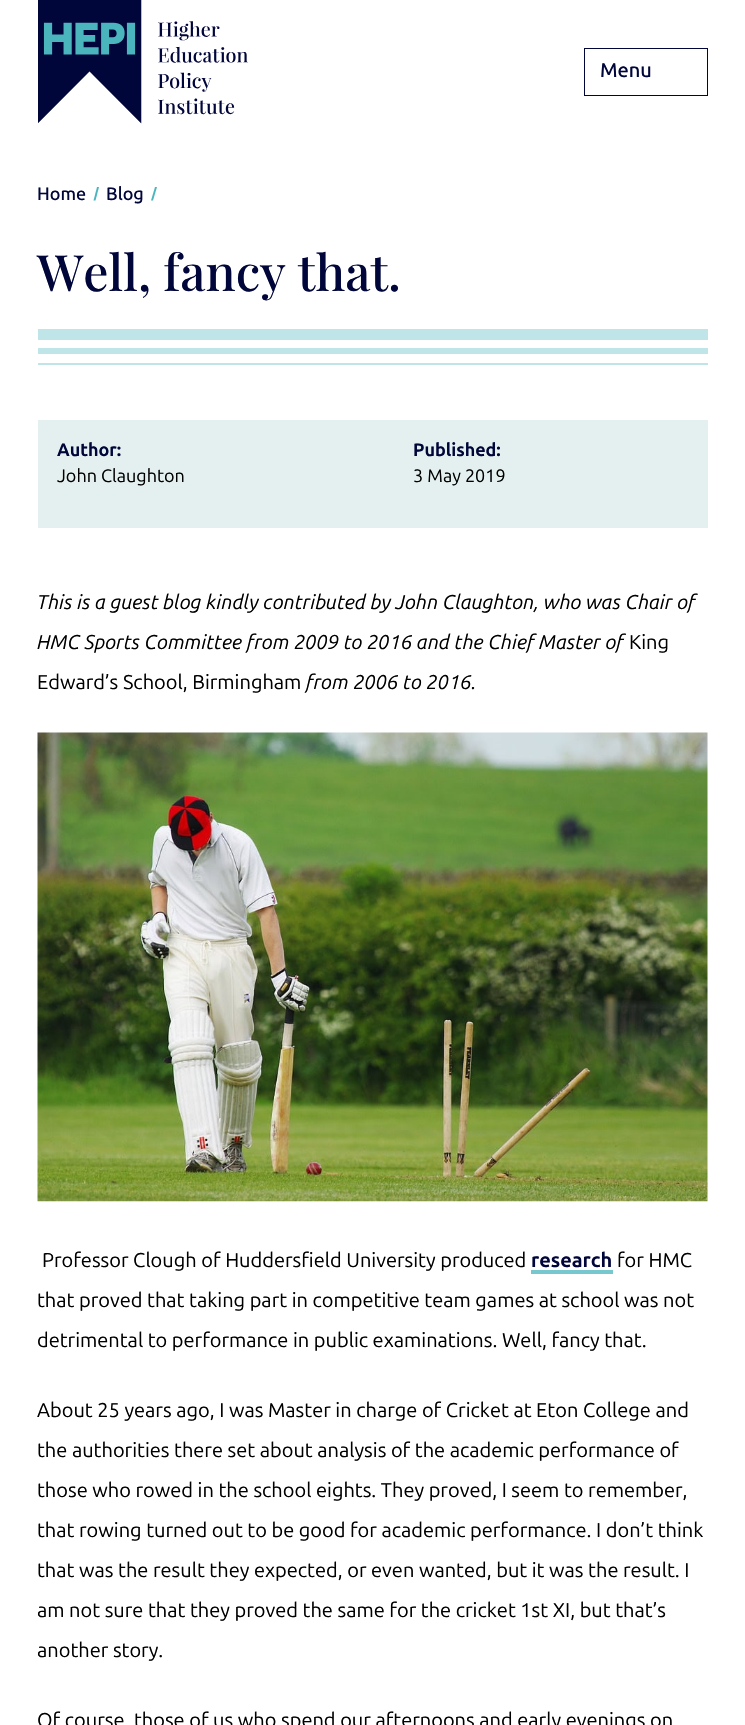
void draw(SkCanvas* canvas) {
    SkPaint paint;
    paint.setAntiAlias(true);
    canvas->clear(0xFFFFFFFF);
    canvas->drawImageRect(SkImages::DeferredFromEncodedData(SkData::MakeFromFileName("img1.png")), SkRect::MakeXYWH(38, 0, 210, 124), SkSamplingOptions());
    paint.setStyle(SkPaint::kStroke_Style);
    paint.setStrokeWidth(1);
    paint.setColor(0xFF00053A);
    canvas->drawRect(SkRect::MakeXYWH(584.5f, 48.5f, 123, 47), paint);
    SkFont font1(fontMgr->matchFamilyStyle("Ubuntu Sans", SkFontStyle(500, SkFontStyle::kNormal_Width, SkFontStyle::kUpright_Slant)), 20);
    font1.setSubpixel(true);
    paint.setStyle(SkPaint::kFill_Style);
    canvas->drawString("Menu", 600, 77, font1, paint);
    SkFont font2(fontMgr->matchFamilyStyle("Ubuntu Sans", SkFontStyle(500, SkFontStyle::kNormal_Width, SkFontStyle::kUpright_Slant)), 18);
    font2.setSubpixel(true);
    canvas->drawString("Home", 37, 200, font2, paint);
    paint.setColor(0xFF4AB5BD);
    canvas->drawPath(SkPathBuilder().moveTo(97, 187).lineTo(99, 187).lineTo(95.5f, 200.5f).lineTo(93.5f, 200.5f).close().detach(), paint);
    paint.setColor(0xFF00053A);
    canvas->drawString("Blog", 106, 200, font2, paint);
    paint.setColor(0xFF4AB5BD);
    canvas->drawPath(SkPathBuilder().moveTo(155, 187).lineTo(157, 187).lineTo(153, 200.5f).lineTo(151, 200.5f).close().detach(), paint);
    SkFont font3(fontMgr->matchFamilyStyle("Playfair Display", SkFontStyle(500, SkFontStyle::kNormal_Width, SkFontStyle::kUpright_Slant)), 50);
    font3.setSubpixel(true);
    paint.setColor(0xFF00053A);
    canvas->drawString("Well, fancy that.", 37, 291, font3, paint);
    paint.setColor(0xFFC0E5E8);
    canvas->drawRect(SkRect::MakeXYWH(38, 329, 670, 11), paint);
    canvas->drawRect(SkRect::MakeXYWH(38, 348, 670, 6), paint);
    canvas->drawRect(SkRect::MakeXYWH(38, 363, 670, 2), paint);
    paint.setColor(0xFFE4F0EF);
    canvas->drawRect(SkRect::MakeXYWH(38, 420, 670, 108), paint);
    SkFont font4(fontMgr->matchFamilyStyle("Ubuntu Sans", SkFontStyle::Bold()), 18);
    font4.setSubpixel(true);
    paint.setColor(0xFF00053A);
    canvas->drawString("Author:", 57, 456, font4, paint);
    SkFont font5(fontMgr->matchFamilyStyle("Ubuntu Sans", SkFontStyle::Normal()), 18);
    font5.setSubpixel(true);
    paint.setColor(0xFF000000);
    canvas->drawString("John Claughton", 57, 482, font5, paint);
    paint.setColor(0xFF00053A);
    canvas->drawString("Published:", 413, 456, font4, paint);
    paint.setColor(0xFF000000);
    canvas->drawString("3 May 2019", 413, 482, font5, paint);
    SkFont font6(fontMgr->matchFamilyStyle("Ubuntu Sans", SkFontStyle::Italic()), 20);
    font6.setSubpixel(true);
    canvas->drawString("This is a guest blog kindly contributed by John Claughton, who was Chair of", 37, 609, font6, paint);
    canvas->drawString("HMC Sports Committee from 2009 to 2016 and the Chief Master of", 37, 649, font6, paint);
    SkFont font7(fontMgr->matchFamilyStyle("Ubuntu Sans", SkFontStyle::Normal()), 20);
    font7.setSubpixel(true);
    canvas->drawString("King", 629, 649, font7, paint);
    canvas->drawString("Edward’s School, Birmingham", 37, 689, font7, paint);
    canvas->drawString("from 2006 to 2016.", 306, 689, font6, paint);
    canvas->drawImageRect(SkImages::DeferredFromEncodedData(SkData::MakeFromFileName("img2.png")), SkRect::MakeXYWH(37, 732, 671, 470), SkSamplingOptions());
    canvas->drawString("Professor Clough of Huddersfield University produced", 42, 1267, font7, paint);
    SkFont font8(fontMgr->matchFamilyStyle("Ubuntu Sans", SkFontStyle::Bold()), 20);
    font8.setSubpixel(true);
    paint.setColor(0xFF00053A);
    canvas->drawString("research", 531, 1267, font8, paint);
    paint.setColor(0xFF77C8CE);
    canvas->drawRect(SkRect::MakeXYWH(531, 1270, 82, 4), paint);
    paint.setColor(0xFF000000);
    canvas->drawString("for HMC", 617, 1267, font7, paint);
    canvas->drawString("that proved that taking part in competitive team games at school was not", 37, 1307, font7, paint);
    canvas->drawString("detrimental to performance in public examinations. Well, fancy that.", 37, 1347, font7, paint);
    canvas->drawString("About 25 years ago, I was Master in charge of Cricket at Eton College and", 37, 1417, font7, paint);
    canvas->drawString("the authorities there set about analysis of the academic performance of", 37, 1457, font7, paint);
    canvas->drawString("those who rowed in the school eights. They proved, I seem to remember,", 37, 1497, font7, paint);
    canvas->drawString("that rowing turned out to be good for academic performance. I don’t think", 37, 1537, font7, paint);
    canvas->drawString("that was the result they expected, or even wanted, but it was the result. I", 37, 1577, font7, paint);
    canvas->drawString("am not sure that they proved the same for the cricket 1st XI, but that’s", 37, 1617, font7, paint);
    canvas->drawString("another story.", 37, 1657, font7, paint);
    canvas->drawString("Of course, those of us who spend our afternoons and early evenings on", 37, 1727, font7, paint);
}
